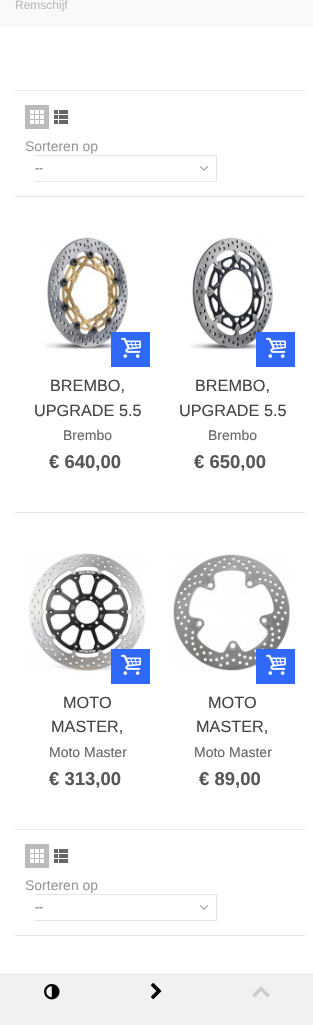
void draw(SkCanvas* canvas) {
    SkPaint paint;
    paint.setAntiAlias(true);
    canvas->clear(0xFFFFFFFF);
    {
        const SkColor colors[] = {0xFFF2F2F2, 0xFFF9F9F9, 0xFFF9F9F9, 0xFFF2F2F2};
        const float stops[] = {0, 0.05f, 0.95f, 1};
        const SkPoint ends[] = {{160, -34}, {160, 26}};
        paint.setShader(SkGradientShader::MakeLinear(ends, colors, stops, 4, SkTileMode::kClamp));
        paint.setAlpha(255);
    }
    canvas->drawRect(SkRect::MakeXYWH(0, 0, 313, 26), paint);
    SkFont font1(fontMgr->matchFamilyStyle("Liberation Sans", SkFontStyle::Normal()), 12);
    font1.setSubpixel(true);
    paint.setShader(nullptr);
    paint.setColor(0xFFBBBBBB);
    canvas->drawString("Remschijf", 15, 9, font1, paint);
    paint.setColor(0xFFE5E5E5);
    canvas->drawRect(SkRect::MakeXYWH(15, 90, 290, 1), paint);
    canvas->drawRect(SkRect::MakeXYWH(15, 196, 290, 1), paint);
    paint.setColor(0xFFBBBBBB);
    canvas->drawRect(SkRect::MakeXYWH(25, 105, 24, 24), paint);
    canvas->drawImageRect(SkImages::DeferredFromEncodedData(SkData::MakeFromFileName("img1.png")), SkRect::MakeXYWH(30, 110, 14, 14), SkSamplingOptions());
    canvas->drawImageRect(SkImages::DeferredFromEncodedData(SkData::MakeFromFileName("img2.png")), SkRect::MakeXYWH(54, 110, 14, 14), SkSamplingOptions());
    SkFont font2(fontMgr->matchFamilyStyle("Liberation Sans", SkFontStyle::Normal()), 14);
    font2.setSubpixel(true);
    paint.setColor(0xFF999999);
    canvas->drawString("Sorteren op", 25, 151, font2, paint);
    canvas->drawImageRect(SkImages::DeferredFromEncodedData(SkData::MakeFromFileName("img3.png")), SkRect::MakeXYWH(35, 155, 182, 27), SkSamplingOptions());
    paint.setColor(0xFF666666);
    canvas->drawString("--", 35, 172, font1, paint);
    canvas->drawImageRect(SkImages::DeferredFromEncodedData(SkData::MakeFromFileName("img4.png")), SkRect::MakeXYWH(44, 237, 84, 112), SkSamplingOptions());
    paint.setColor(0xFF3068F9);
    canvas->drawRect(SkRect::MakeXYWH(111, 332, 39, 35), paint);
    canvas->drawImageRect(SkImages::DeferredFromEncodedData(SkData::MakeFromFileName("img5.png")), SkRect::MakeXYWH(121, 337, 20, 21), SkSamplingOptions());
    SkFont font3(fontMgr->matchFamilyStyle("Liberation Sans", SkFontStyle::Normal()), 16.25f);
    font3.setSubpixel(true);
    paint.setColor(0xFF444444);
    canvas->drawString("BREMBO,", 50, 391, font3, paint);
    canvas->drawString("UPGRADE 5.5", 34, 416, font3, paint);
    paint.setColor(0xFF666666);
    canvas->drawString("Brembo", 63, 440, font2, paint);
    SkFont font4(fontMgr->matchFamilyStyle("Liberation Sans", SkFontStyle::Bold()), 18.5f);
    font4.setSubpixel(true);
    paint.setColor(0xFF575757);
    canvas->drawString("€ 640,00", 49, 468, font4, paint);
    canvas->drawImageRect(SkImages::DeferredFromEncodedData(SkData::MakeFromFileName("img6.png")), SkRect::MakeXYWH(190, 237, 83, 113), SkSamplingOptions());
    paint.setColor(0xFF3068F9);
    canvas->drawRect(SkRect::MakeXYWH(256, 332, 39, 35), paint);
    canvas->drawImageRect(SkImages::DeferredFromEncodedData(SkData::MakeFromFileName("img5.png")), SkRect::MakeXYWH(266, 337, 20, 21), SkSamplingOptions());
    paint.setColor(0xFF444444);
    canvas->drawString("BREMBO,", 195, 391, font3, paint);
    canvas->drawString("UPGRADE 5.5", 179, 416, font3, paint);
    paint.setColor(0xFF666666);
    canvas->drawString("Brembo", 208, 440, font2, paint);
    paint.setColor(0xFF575757);
    canvas->drawString("€ 650,00", 194, 468, font4, paint);
    paint.setColor(0xFFE5E5E5);
    canvas->drawRect(SkRect::MakeXYWH(15, 512, 290, 1), paint);
    canvas->drawImageRect(SkImages::DeferredFromEncodedData(SkData::MakeFromFileName("img7.png")), SkRect::MakeXYWH(28, 553, 118, 121), SkSamplingOptions());
    paint.setColor(0xFF3068F9);
    canvas->drawRect(SkRect::MakeXYWH(111, 649, 39, 35), paint);
    canvas->drawImageRect(SkImages::DeferredFromEncodedData(SkData::MakeFromFileName("img5.png")), SkRect::MakeXYWH(121, 654, 20, 21), SkSamplingOptions());
    paint.setColor(0xFF444444);
    canvas->drawString("MOTO", 63, 708, font3, paint);
    canvas->drawString("MASTER,", 51, 732, font3, paint);
    paint.setColor(0xFF666666);
    canvas->drawString("Moto Master", 49, 757, font2, paint);
    paint.setColor(0xFF575757);
    canvas->drawString("€ 313,00", 49, 785, font4, paint);
    canvas->drawImageRect(SkImages::DeferredFromEncodedData(SkData::MakeFromFileName("img8.png")), SkRect::MakeXYWH(173, 554, 117, 117), SkSamplingOptions());
    paint.setColor(0xFF3068F9);
    canvas->drawRect(SkRect::MakeXYWH(256, 649, 39, 35), paint);
    canvas->drawImageRect(SkImages::DeferredFromEncodedData(SkData::MakeFromFileName("img5.png")), SkRect::MakeXYWH(266, 654, 20, 21), SkSamplingOptions());
    paint.setColor(0xFF444444);
    canvas->drawString("MOTO", 208, 708, font3, paint);
    canvas->drawString("MASTER,", 196, 732, font3, paint);
    paint.setColor(0xFF666666);
    canvas->drawString("Moto Master", 194, 757, font2, paint);
    paint.setColor(0xFF575757);
    canvas->drawString("€ 89,00", 199, 785, font4, paint);
    paint.setColor(0xFFE5E5E5);
    canvas->drawRect(SkRect::MakeXYWH(15, 829, 290, 1), paint);
    paint.setColor(0xFFBBBBBB);
    canvas->drawRect(SkRect::MakeXYWH(25, 844, 24, 24), paint);
    canvas->drawImageRect(SkImages::DeferredFromEncodedData(SkData::MakeFromFileName("img1.png")), SkRect::MakeXYWH(30, 849, 14, 14), SkSamplingOptions());
    canvas->drawImageRect(SkImages::DeferredFromEncodedData(SkData::MakeFromFileName("img2.png")), SkRect::MakeXYWH(54, 849, 14, 14), SkSamplingOptions());
    paint.setColor(0xFF999999);
    canvas->drawString("Sorteren op", 25, 890, font2, paint);
    canvas->drawImageRect(SkImages::DeferredFromEncodedData(SkData::MakeFromFileName("img3.png")), SkRect::MakeXYWH(35, 894, 182, 27), SkSamplingOptions());
    paint.setColor(0xFF666666);
    canvas->drawString("--", 35, 911, font1, paint);
    paint.setColor(0xFFE5E5E5);
    canvas->drawRect(SkRect::MakeXYWH(15, 935, 290, 1), paint);
    paint.setColor(0xFFF1F1F1);
    canvas->drawRect(SkRect::MakeXYWH(0, 975, 313, 50), paint);
    paint.setColor(0xFFE5E5E5);
    canvas->drawRect(SkRect::MakeXYWH(0, 974, 313, 1), paint);
    canvas->drawImageRect(SkImages::DeferredFromEncodedData(SkData::MakeFromFileName("img9.png")), SkRect::MakeXYWH(44, 984, 16, 16), SkSamplingOptions());
    canvas->drawImageRect(SkImages::DeferredFromEncodedData(SkData::MakeFromFileName("img10.png")), SkRect::MakeXYWH(150, 983, 12, 17), SkSamplingOptions());
    paint.setColor(0xFFCCCCCC);
    canvas->drawPath(SkPathBuilder().moveTo(252, 995).lineTo(261, 986).lineTo(270, 995).lineTo(267.5f, 997.5f).lineTo(261, 991).lineTo(254.5f, 997.5f).close().detach(), paint);
}
